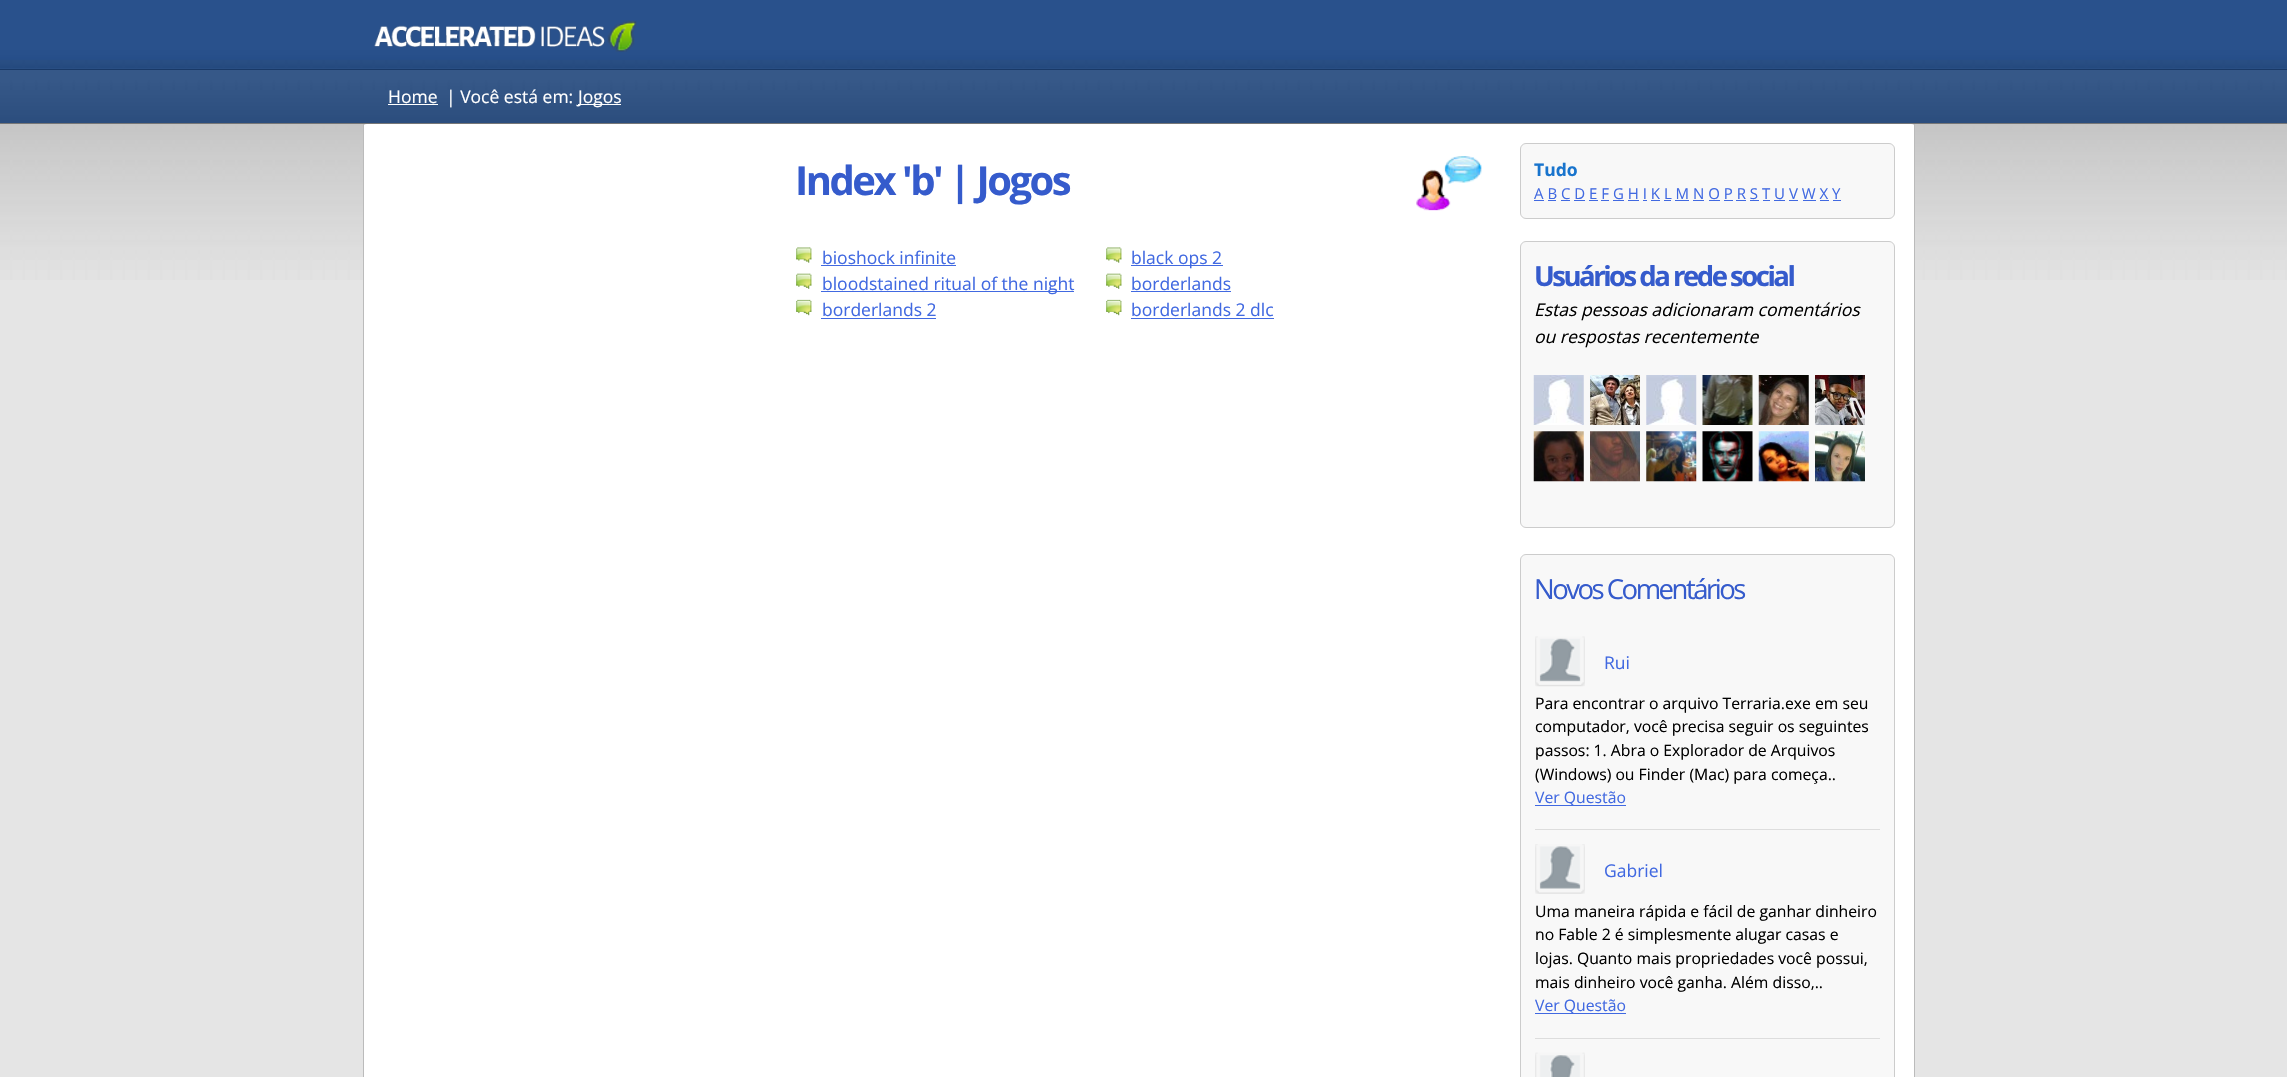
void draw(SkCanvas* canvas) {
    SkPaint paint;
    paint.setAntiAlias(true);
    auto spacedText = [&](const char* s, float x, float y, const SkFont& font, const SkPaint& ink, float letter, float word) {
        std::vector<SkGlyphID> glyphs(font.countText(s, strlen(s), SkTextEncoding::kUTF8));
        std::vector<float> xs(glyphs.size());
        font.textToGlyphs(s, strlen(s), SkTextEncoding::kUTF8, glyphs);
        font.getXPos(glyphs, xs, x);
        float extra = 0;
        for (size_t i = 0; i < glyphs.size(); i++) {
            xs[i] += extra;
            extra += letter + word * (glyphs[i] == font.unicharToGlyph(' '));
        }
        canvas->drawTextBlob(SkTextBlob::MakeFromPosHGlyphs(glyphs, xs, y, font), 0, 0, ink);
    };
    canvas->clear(0xFFE5E5E5);
    canvas->drawImageRect(SkImages::DeferredFromEncodedData(SkData::MakeFromFileName("img1.png")), SkRect::MakeXYWH(0, 124, 2287, 156), SkSamplingOptions());
    paint.setColor(0xFF294E83);
    canvas->drawRect(SkRect::MakeXYWH(0, 68, 2287, 1), paint);
    canvas->drawImageRect(SkImages::DeferredFromEncodedData(SkData::MakeFromFileName("img2.png")), SkRect::MakeXYWH(0, 0, 2287, 68), SkSamplingOptions());
    canvas->drawImageRect(SkImages::DeferredFromEncodedData(SkData::MakeFromFileName("img3.png")), SkRect::MakeXYWH(374, 20, 263, 32), SkSamplingOptions());
    canvas->drawImageRect(SkImages::DeferredFromEncodedData(SkData::MakeFromFileName("img4.png")), SkRect::MakeXYWH(0, 70, 2287, 53), SkSamplingOptions());
    paint.setColor(0xFF193967);
    canvas->drawRect(SkRect::MakeXYWH(0, 69, 2287, 1), paint);
    paint.setColor(0xFF777777);
    canvas->drawRect(SkRect::MakeXYWH(0, 123, 2287, 1), paint);
    SkFont font1(fontMgr->matchFamilyStyle("Open Sans", SkFontStyle::Normal()), 17.5f);
    font1.setSubpixel(true);
    paint.setColor(0xFFFFFFFF);
    canvas->drawString("Home", 388, 103, font1, paint);
    canvas->drawRect(SkRect::MakeXYWH(388, 104, 50, 1), paint);
    canvas->drawString("| Você está em:", 446, 103, font1, paint);
    canvas->drawRect(SkRect::MakeXYWH(578, 104, 43, 1), paint);
    canvas->drawString("Jogos", 578, 103, font1, paint);
    canvas->drawRoundRect(SkRect::MakeXYWH(363, 124, 1552, 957), 4, 4, paint);
    paint.setColor(0xFFBBBBBB);
    canvas->drawRect(SkRect::MakeXYWH(1914, 124, 1, 953), paint);
    canvas->drawRect(SkRect::MakeXYWH(363, 124, 1, 953), paint);
    SkFont font2(fontMgr->matchFamilyStyle("Open Sans", SkFontStyle::Bold()), 40);
    font2.setSubpixel(true);
    paint.setColor(0xFF355BCC);
    spacedText("Index 'b' | Jogos", 795, 195, font2, paint, -2.5f, 0);
    canvas->drawImageRect(SkImages::DeferredFromEncodedData(SkData::MakeFromFileName("img5.png")), SkRect::MakeXYWH(1416, 156, 66, 55), SkSamplingOptions());
    canvas->drawImageRect(SkImages::DeferredFromEncodedData(SkData::MakeFromFileName("img6.png")), SkRect::MakeXYWH(796, 247, 16, 16), SkSamplingOptions());
    paint.setColor(0xFF4169E1);
    canvas->drawString("bioshock infinite", 822, 264, font1, paint);
    canvas->drawRect(SkRect::MakeXYWH(821, 265, 135, 1), paint);
    canvas->drawImageRect(SkImages::DeferredFromEncodedData(SkData::MakeFromFileName("img6.png")), SkRect::MakeXYWH(1106, 247, 16, 16), SkSamplingOptions());
    canvas->drawRect(SkRect::MakeXYWH(1131, 265, 92, 1), paint);
    canvas->drawString("black ops 2", 1131, 264, font1, paint);
    canvas->drawImageRect(SkImages::DeferredFromEncodedData(SkData::MakeFromFileName("img7.png")), SkRect::MakeXYWH(796, 273, 16, 16), SkSamplingOptions());
    canvas->drawRect(SkRect::MakeXYWH(821, 291, 253, 1), paint);
    canvas->drawString("bloodstained ritual of the night", 822, 290, font1, paint);
    canvas->drawImageRect(SkImages::DeferredFromEncodedData(SkData::MakeFromFileName("img7.png")), SkRect::MakeXYWH(1106, 273, 16, 16), SkSamplingOptions());
    canvas->drawString("borderlands", 1131, 290, font1, paint);
    canvas->drawRect(SkRect::MakeXYWH(1131, 291, 100, 1), paint);
    canvas->drawImageRect(SkImages::DeferredFromEncodedData(SkData::MakeFromFileName("img8.png")), SkRect::MakeXYWH(796, 299, 16, 17), SkSamplingOptions());
    canvas->drawString("borderlands 2", 822, 316, font1, paint);
    canvas->drawRect(SkRect::MakeXYWH(821, 318, 115, 1), paint);
    canvas->drawImageRect(SkImages::DeferredFromEncodedData(SkData::MakeFromFileName("img8.png")), SkRect::MakeXYWH(1106, 299, 16, 17), SkSamplingOptions());
    canvas->drawString("borderlands 2 dlc", 1131, 316, font1, paint);
    canvas->drawRect(SkRect::MakeXYWH(1131, 318, 143, 1), paint);
    paint.setColor(0xFFF8F8F8);
    canvas->drawRoundRect(SkRect::MakeXYWH(1520.5f, 143.5f, 374, 75), 5.5f, 5.5f, paint);
    paint.setStyle(SkPaint::kStroke_Style);
    paint.setStrokeWidth(1);
    paint.setColor(0xFFCCCCCC);
    canvas->drawRoundRect(SkRect::MakeXYWH(1520.5f, 143.5f, 374, 75), 5.5f, 5.5f, paint);
    SkFont font3(fontMgr->matchFamilyStyle("Open Sans", SkFontStyle::Bold()), 17.5f);
    font3.setSubpixel(true);
    paint.setStyle(SkPaint::kFill_Style);
    paint.setColor(0xFF1874CD);
    canvas->drawString("Tudo", 1534, 176, font3, paint);
    SkFont font4(fontMgr->matchFamilyStyle("Open Sans", SkFontStyle::Normal()), 15);
    font4.setSubpixel(true);
    paint.setColor(0xFF4169E1);
    canvas->drawString("A B C D E F G H I K L M N O P R S T U V W X Y", 1534, 199, font4, paint);
    canvas->drawRect(SkRect::MakeXYWH(1534, 200, 10, 1), paint);
    canvas->drawRect(SkRect::MakeXYWH(1548, 200, 8, 1), paint);
    canvas->drawRect(SkRect::MakeXYWH(1561, 200, 9, 1), paint);
    canvas->drawRect(SkRect::MakeXYWH(1574, 200, 11, 1), paint);
    canvas->drawRect(SkRect::MakeXYWH(1589, 200, 9, 1), paint);
    canvas->drawRect(SkRect::MakeXYWH(1601, 200, 8, 1), paint);
    canvas->drawRect(SkRect::MakeXYWH(1613, 200, 11, 1), paint);
    canvas->drawRect(SkRect::MakeXYWH(1628, 200, 11, 1), paint);
    canvas->drawRect(SkRect::MakeXYWH(1643, 200, 4, 1), paint);
    canvas->drawRect(SkRect::MakeXYWH(1651, 200, 9, 1), paint);
    canvas->drawRect(SkRect::MakeXYWH(1664, 200, 7, 1), paint);
    canvas->drawRect(SkRect::MakeXYWH(1675, 200, 14, 1), paint);
    canvas->drawRect(SkRect::MakeXYWH(1693, 200, 11, 1), paint);
    canvas->drawRect(SkRect::MakeXYWH(1709, 200, 11, 1), paint);
    canvas->drawRect(SkRect::MakeXYWH(1724, 200, 9, 1), paint);
    canvas->drawRect(SkRect::MakeXYWH(1736, 200, 10, 1), paint);
    canvas->drawRect(SkRect::MakeXYWH(1750, 200, 9, 1), paint);
    canvas->drawRect(SkRect::MakeXYWH(1763, 200, 7, 1), paint);
    canvas->drawRect(SkRect::MakeXYWH(1774, 200, 11, 1), paint);
    canvas->drawRect(SkRect::MakeXYWH(1789, 200, 9, 1), paint);
    canvas->drawRect(SkRect::MakeXYWH(1803, 200, 13, 1), paint);
    canvas->drawRect(SkRect::MakeXYWH(1820, 200, 9, 1), paint);
    canvas->drawRect(SkRect::MakeXYWH(1833, 200, 8, 1), paint);
    paint.setColor(0xFFF8F8F8);
    canvas->drawRoundRect(SkRect::MakeXYWH(1520.5f, 241.5f, 374, 286), 5.5f, 5.5f, paint);
    paint.setStyle(SkPaint::kStroke_Style);
    paint.setColor(0xFFCCCCCC);
    canvas->drawRoundRect(SkRect::MakeXYWH(1520.5f, 241.5f, 374, 286), 5.5f, 5.5f, paint);
    SkFont font5(fontMgr->matchFamilyStyle("Open Sans", SkFontStyle::Bold()), 27.5f);
    font5.setSubpixel(true);
    paint.setStyle(SkPaint::kFill_Style);
    paint.setColor(0xFF355BCC);
    spacedText("Usuários da rede social", 1534, 286, font5, paint, -2.5f, 0);
    SkFont font6(fontMgr->matchFamilyStyle("Open Sans", SkFontStyle::Italic()), 17.5f);
    font6.setSubpixel(true);
    paint.setColor(0xFF000000);
    canvas->drawString("Estas pessoas adicionaram comentários", 1534, 316, font6, paint);
    canvas->drawString("ou respostas recentemente", 1534, 343, font6, paint);
    canvas->drawImageRect(SkImages::DeferredFromEncodedData(SkData::MakeFromFileName("img9.png")), SkRect::MakeXYWH(1533, 375, 51, 50), SkSamplingOptions());
    canvas->drawImageRect(SkImages::DeferredFromEncodedData(SkData::MakeFromFileName("img10.png")), SkRect::MakeXYWH(1590, 375, 50, 50), SkSamplingOptions());
    canvas->drawImageRect(SkImages::DeferredFromEncodedData(SkData::MakeFromFileName("img11.png")), SkRect::MakeXYWH(1646, 375, 51, 50), SkSamplingOptions());
    canvas->drawImageRect(SkImages::DeferredFromEncodedData(SkData::MakeFromFileName("img12.png")), SkRect::MakeXYWH(1702, 375, 51, 50), SkSamplingOptions());
    canvas->drawImageRect(SkImages::DeferredFromEncodedData(SkData::MakeFromFileName("img13.png")), SkRect::MakeXYWH(1758, 375, 51, 50), SkSamplingOptions());
    canvas->drawImageRect(SkImages::DeferredFromEncodedData(SkData::MakeFromFileName("img14.png")), SkRect::MakeXYWH(1815, 375, 50, 50), SkSamplingOptions());
    canvas->drawImageRect(SkImages::DeferredFromEncodedData(SkData::MakeFromFileName("img15.png")), SkRect::MakeXYWH(1533, 431, 51, 51), SkSamplingOptions());
    canvas->drawImageRect(SkImages::DeferredFromEncodedData(SkData::MakeFromFileName("img16.png")), SkRect::MakeXYWH(1590, 431, 50, 51), SkSamplingOptions());
    canvas->drawImageRect(SkImages::DeferredFromEncodedData(SkData::MakeFromFileName("img17.png")), SkRect::MakeXYWH(1646, 431, 51, 51), SkSamplingOptions());
    canvas->drawImageRect(SkImages::DeferredFromEncodedData(SkData::MakeFromFileName("img18.png")), SkRect::MakeXYWH(1702, 431, 51, 51), SkSamplingOptions());
    canvas->drawImageRect(SkImages::DeferredFromEncodedData(SkData::MakeFromFileName("img19.png")), SkRect::MakeXYWH(1758, 431, 51, 51), SkSamplingOptions());
    canvas->drawImageRect(SkImages::DeferredFromEncodedData(SkData::MakeFromFileName("img20.png")), SkRect::MakeXYWH(1815, 431, 50, 51), SkSamplingOptions());
    paint.setColor(0xFFF8F8F8);
    canvas->drawRoundRect(SkRect::MakeXYWH(1520.5f, 554.5f, 374, 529), 5.5f, 5.5f, paint);
    paint.setStyle(SkPaint::kStroke_Style);
    paint.setColor(0xFFCCCCCC);
    canvas->drawRoundRect(SkRect::MakeXYWH(1520.5f, 554.5f, 374, 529), 5.5f, 5.5f, paint);
    SkFont font7(fontMgr->matchFamilyStyle("Open Sans", SkFontStyle::Normal()), 27.5f);
    font7.setSubpixel(true);
    paint.setStyle(SkPaint::kFill_Style);
    paint.setColor(0xFF355BCC);
    spacedText("Novos Comentários", 1534, 599, font7, paint, -2.5f, 0);
    paint.setColor(0xFFDDDDDD);
    canvas->drawRect(SkRect::MakeXYWH(1535, 829, 345, 1), paint);
    canvas->drawImageRect(SkImages::DeferredFromEncodedData(SkData::MakeFromFileName("img21.png")), SkRect::MakeXYWH(1535, 636, 50, 51), SkSamplingOptions());
    paint.setColor(0xFF4169E1);
    canvas->drawString("Rui", 1604, 669, font1, paint);
    SkFont font8(fontMgr->matchFamilyStyle("Open Sans", SkFontStyle::Normal()), 15.75f);
    font8.setSubpixel(true);
    paint.setColor(0xFF000000);
    canvas->drawString("Para encontrar o arquivo Terraria.exe em seu", 1535, 709, font8, paint);
    canvas->drawString("computador, você precisa seguir os seguintes", 1535, 732, font8, paint);
    canvas->drawString("passos: 1. Abra o Explorador de Arquivos", 1535, 756, font8, paint);
    canvas->drawString("(Windows) ou Finder (Mac) para começa..", 1535, 780, font8, paint);
    paint.setColor(0xFF4169E1);
    canvas->drawRect(SkRect::MakeXYWH(1535, 805, 91, 1), paint);
    canvas->drawString("Ver Questão", 1535, 803, font8, paint);
    paint.setColor(0xFFDDDDDD);
    canvas->drawRect(SkRect::MakeXYWH(1535, 1038, 345, 1), paint);
    canvas->drawImageRect(SkImages::DeferredFromEncodedData(SkData::MakeFromFileName("img22.png")), SkRect::MakeXYWH(1535, 844, 50, 50), SkSamplingOptions());
    paint.setColor(0xFF4169E1);
    canvas->drawString("Gabriel", 1604, 877, font1, paint);
    paint.setColor(0xFF000000);
    canvas->drawString("Uma maneira rápida e fácil de ganhar dinheiro", 1535, 917, font8, paint);
    canvas->drawString("no Fable 2 é simplesmente alugar casas e", 1535, 940, font8, paint);
    canvas->drawString("lojas. Quanto mais propriedades você possui,", 1535, 964, font8, paint);
    canvas->drawString("mais dinheiro você ganha. Além disso,..", 1535, 988, font8, paint);
    paint.setColor(0xFF4169E1);
    canvas->drawRect(SkRect::MakeXYWH(1535, 1013, 91, 1), paint);
    canvas->drawString("Ver Questão", 1535, 1011, font8, paint);
    canvas->drawImageRect(SkImages::DeferredFromEncodedData(SkData::MakeFromFileName("img23.png")), SkRect::MakeXYWH(1535, 1052, 50, 25), SkSamplingOptions());
}
